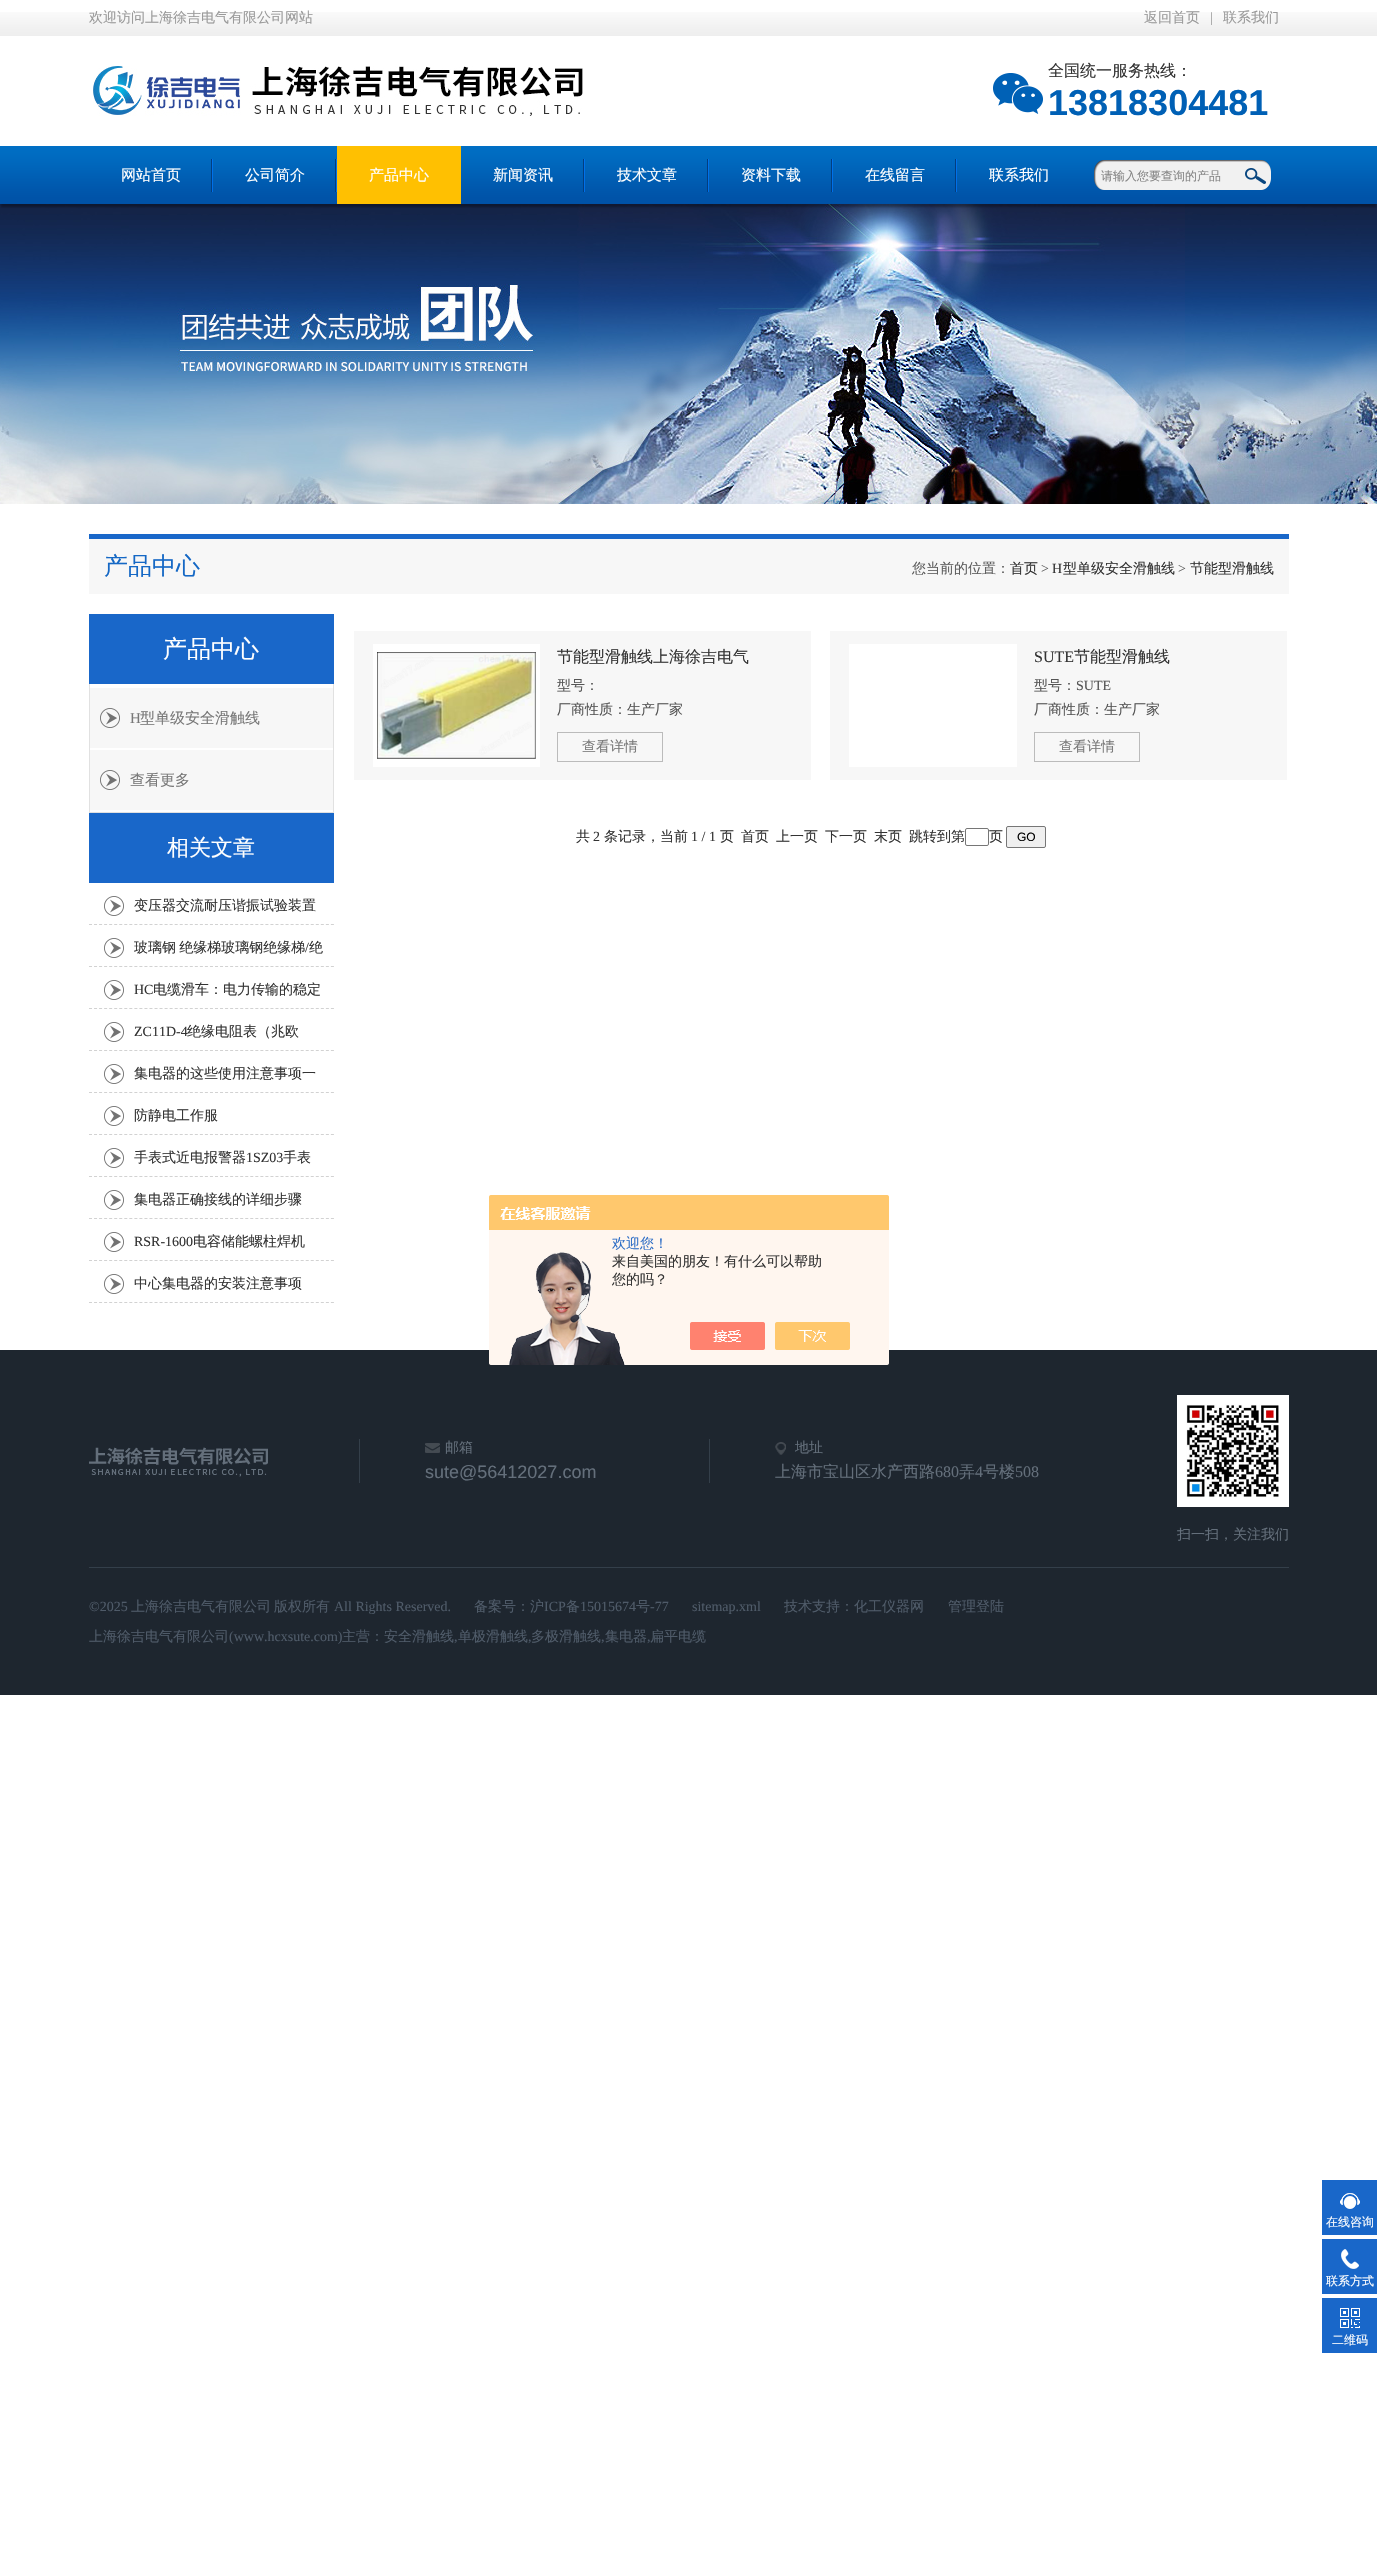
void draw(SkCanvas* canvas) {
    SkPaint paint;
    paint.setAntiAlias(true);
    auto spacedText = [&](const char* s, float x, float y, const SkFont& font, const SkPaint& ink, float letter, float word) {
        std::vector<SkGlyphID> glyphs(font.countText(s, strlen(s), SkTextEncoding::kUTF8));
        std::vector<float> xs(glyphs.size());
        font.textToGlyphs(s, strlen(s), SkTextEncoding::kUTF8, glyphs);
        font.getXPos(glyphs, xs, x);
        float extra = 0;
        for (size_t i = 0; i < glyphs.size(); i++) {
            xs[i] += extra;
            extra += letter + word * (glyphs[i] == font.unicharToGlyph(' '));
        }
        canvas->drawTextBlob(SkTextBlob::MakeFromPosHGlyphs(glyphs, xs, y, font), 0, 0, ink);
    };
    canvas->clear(0xFFFFFFFF);
    canvas->drawImageRect(SkImages::DeferredFromEncodedData(SkData::MakeFromFileName("img1.png")), SkRect::MakeXYWH(0, 12, 1377, 24), SkSamplingOptions());
    SkFont font1(fontMgr->matchFamilyStyle("WenQuanYi Zen Hei", SkFontStyle(500, SkFontStyle::kNormal_Width, SkFontStyle::kUpright_Slant)), 14);
    font1.setSubpixel(true);
    paint.setColor(0xFF999999);
    canvas->drawString("欢迎访问上海徐吉电气有限公司网站", 89, 22, font1, paint);
    canvas->drawString("返回首页", 1144, 22, font1, paint);
    SkFont font2(fontMgr->matchFamilyStyle("Liberation Serif", SkFontStyle::Normal()), 14);
    font2.setSubpixel(true);
    canvas->drawString("|", 1210, 22, font2, paint);
    canvas->drawString("联系我们", 1223, 22, font1, paint);
    canvas->drawImageRect(SkImages::DeferredFromEncodedData(SkData::MakeFromFileName("img2.png")), SkRect::MakeXYWH(93, 66, 490, 50), SkSamplingOptions());
    canvas->drawImageRect(SkImages::DeferredFromEncodedData(SkData::MakeFromFileName("img3.png")), SkRect::MakeXYWH(993, 73, 50, 41), SkSamplingOptions());
    SkFont font3(fontMgr->matchFamilyStyle("WenQuanYi Zen Hei", SkFontStyle(500, SkFontStyle::kNormal_Width, SkFontStyle::kUpright_Slant)), 16);
    font3.setSubpixel(true);
    paint.setColor(0xFF333333);
    canvas->drawString("全国统一服务热线：", 1048, 76, font3, paint);
    SkFont font4(fontMgr->matchFamilyStyle("Liberation Sans", SkFontStyle::Bold()), 36);
    font4.setSubpixel(true);
    paint.setColor(0xFF0060B5);
    canvas->drawString("13818304481", 1048, 115, font4, paint);
    canvas->drawImageRect(SkImages::DeferredFromEncodedData(SkData::MakeFromFileName("img8.png")), SkRect::MakeXYWH(0, 204, 1377, 300), SkSamplingOptions());
    paint.setColor(0x4D000000);
    paint.setMaskFilter(SkMaskFilter::MakeBlur(kNormal_SkBlurStyle, 1));
    canvas->drawRect(SkRect::MakeXYWH(1, 151, 1375, 56), paint);
    paint.setMaskFilter(nullptr);
    canvas->drawImageRect(SkImages::DeferredFromEncodedData(SkData::MakeFromFileName("img4.png")), SkRect::MakeXYWH(0, 146, 1377, 58), SkSamplingOptions());
    canvas->drawImageRect(SkImages::DeferredFromEncodedData(SkData::MakeFromFileName("img5.png")), SkRect::MakeXYWH(211, 159, 2, 33), SkSamplingOptions());
    SkFont font5(fontMgr->matchFamilyStyle("WenQuanYi Zen Hei", SkFontStyle(500, SkFontStyle::kNormal_Width, SkFontStyle::kUpright_Slant)), 15);
    font5.setSubpixel(true);
    paint.setColor(0xFFFFFFFF);
    canvas->drawString("网站首页", 121, 180, font5, paint);
    canvas->drawImageRect(SkImages::DeferredFromEncodedData(SkData::MakeFromFileName("img5.png")), SkRect::MakeXYWH(335, 159, 2, 33), SkSamplingOptions());
    canvas->drawString("公司简介", 245, 180, font5, paint);
    paint.setColor(0xFFFFC001);
    canvas->drawRect(SkRect::MakeXYWH(337, 146, 124, 58), paint);
    paint.setColor(0xFFFFFFFF);
    canvas->drawString("产品中心", 369, 180, font5, paint);
    canvas->drawImageRect(SkImages::DeferredFromEncodedData(SkData::MakeFromFileName("img5.png")), SkRect::MakeXYWH(583, 159, 2, 33), SkSamplingOptions());
    canvas->drawString("新闻资讯", 493, 180, font5, paint);
    canvas->drawImageRect(SkImages::DeferredFromEncodedData(SkData::MakeFromFileName("img5.png")), SkRect::MakeXYWH(707, 159, 2, 33), SkSamplingOptions());
    canvas->drawString("技术文章", 617, 180, font5, paint);
    canvas->drawImageRect(SkImages::DeferredFromEncodedData(SkData::MakeFromFileName("img5.png")), SkRect::MakeXYWH(831, 159, 2, 33), SkSamplingOptions());
    canvas->drawString("资料下载", 741, 180, font5, paint);
    canvas->drawImageRect(SkImages::DeferredFromEncodedData(SkData::MakeFromFileName("img5.png")), SkRect::MakeXYWH(955, 159, 2, 33), SkSamplingOptions());
    canvas->drawString("在线留言", 865, 180, font5, paint);
    canvas->drawString("联系我们", 989, 180, font5, paint);
    canvas->drawImageRect(SkImages::DeferredFromEncodedData(SkData::MakeFromFileName("img6.png")), SkRect::MakeXYWH(1094, 160, 177, 30), SkSamplingOptions());
    SkFont font6(fontMgr->matchFamilyStyle("WenQuanYi Zen Hei", SkFontStyle(500, SkFontStyle::kNormal_Width, SkFontStyle::kUpright_Slant)), 12);
    font6.setSubpixel(true);
    paint.setColor(0xFF858585);
    canvas->drawString("请输入您要查询的产品", 1101, 180, font6, paint);
    canvas->drawImageRect(SkImages::DeferredFromEncodedData(SkData::MakeFromFileName("img7.png")), SkRect::MakeXYWH(1245, 168, 21, 16), SkSamplingOptions());
    paint.setColor(0xFFF7F7F7);
    canvas->drawRect(SkRect::MakeXYWH(89, 539, 1200, 55), paint);
    paint.setColor(0xFF1967C9);
    canvas->drawRect(SkRect::MakeXYWH(89, 534, 1200, 5), paint);
    SkFont font7(fontMgr->matchFamilyStyle("WenQuanYi Zen Hei", SkFontStyle(500, SkFontStyle::kNormal_Width, SkFontStyle::kUpright_Slant)), 24);
    font7.setSubpixel(true);
    paint.setColor(0xFF1568C5);
    canvas->drawString("产品中心", 104, 574, font7, paint);
    paint.setColor(0xFF5C5C5C);
    canvas->drawString("您当前的位置：", 912, 573, font1, paint);
    paint.setColor(0xFF333333);
    canvas->drawString("首页", 1010, 573, font1, paint);
    paint.setColor(0xFF5C5C5C);
    canvas->drawString(">", 1041, 573, font2, paint);
    paint.setColor(0xFF333333);
    canvas->drawString("H", 1052, 573, font2, paint);
    canvas->drawString("型单级安全滑触线", 1063, 573, font1, paint);
    paint.setColor(0xFF5C5C5C);
    canvas->drawString(">", 1178, 573, font2, paint);
    paint.setColor(0xFF333333);
    canvas->drawString("节能型滑触线", 1190, 573, font1, paint);
    paint.setColor(0xFF1967C9);
    canvas->drawRect(SkRect::MakeXYWH(89, 614, 245, 70), paint);
    paint.setColor(0xFFFFFFFF);
    canvas->drawString("产品中心", 163, 657, font7, paint);
    paint.setColor(0xFFE1E1E1);
    canvas->drawRect(SkRect::MakeXYWH(333, 684, 1, 129), paint);
    canvas->drawRect(SkRect::MakeXYWH(89, 812, 245, 1), paint);
    canvas->drawRect(SkRect::MakeXYWH(89, 684, 1, 129), paint);
    paint.setColor(0xFFF7F7F7);
    canvas->drawRect(SkRect::MakeXYWH(90, 688, 243, 60), paint);
    canvas->drawImageRect(SkImages::DeferredFromEncodedData(SkData::MakeFromFileName("img9.png")), SkRect::MakeXYWH(100, 708, 20, 20), SkSamplingOptions());
    SkFont font8(fontMgr->matchFamilyStyle("Liberation Serif", SkFontStyle::Normal()), 15);
    font8.setSubpixel(true);
    paint.setColor(0xFF787878);
    canvas->drawString("H", 130, 723, font8, paint);
    canvas->drawString("型单级安全滑触线", 140, 723, font5, paint);
    paint.setColor(0xFFF7F7F7);
    canvas->drawRect(SkRect::MakeXYWH(90, 750, 243, 60), paint);
    canvas->drawImageRect(SkImages::DeferredFromEncodedData(SkData::MakeFromFileName("img9.png")), SkRect::MakeXYWH(100, 770, 20, 20), SkSamplingOptions());
    paint.setColor(0xFF787878);
    canvas->drawString("查看更多", 130, 785, font5, paint);
    paint.setColor(0xFF1967C9);
    canvas->drawRect(SkRect::MakeXYWH(89, 813, 245, 70), paint);
    SkFont font9(fontMgr->matchFamilyStyle("WenQuanYi Zen Hei", SkFontStyle(500, SkFontStyle::kNormal_Width, SkFontStyle::kUpright_Slant)), 22);
    font9.setSubpixel(true);
    paint.setColor(0xFFFFFFFF);
    canvas->drawString("相关文章", 167, 855, font9, paint);
    canvas->drawImageRect(SkImages::DeferredFromEncodedData(SkData::MakeFromFileName("img10.png")), SkRect::MakeXYWH(104, 896, 20, 20), SkSamplingOptions());
    paint.setStyle(SkPaint::kStroke_Style);
    paint.setStrokeWidth(1);
    paint.setColor(0xFFD2D2D2);
    paint.setPathEffect(SkDashPathEffect::Make({{3, 2.04f}}, 0));
    canvas->drawPath(SkPathBuilder().moveTo(89, 924.5f).lineTo(334, 924.5f).detach(), paint);
    paint.setPathEffect(nullptr);
    paint.setStyle(SkPaint::kFill_Style);
    paint.setColor(0xFF333333);
    canvas->drawString("变压器交流耐压谐振试验装置", 134, 910, font1, paint);
    canvas->drawImageRect(SkImages::DeferredFromEncodedData(SkData::MakeFromFileName("img10.png")), SkRect::MakeXYWH(104, 938, 20, 20), SkSamplingOptions());
    paint.setStyle(SkPaint::kStroke_Style);
    paint.setColor(0xFFD2D2D2);
    paint.setPathEffect(SkDashPathEffect::Make({{3, 2.04f}}, 0));
    canvas->drawPath(SkPathBuilder().moveTo(89, 966.5f).lineTo(334, 966.5f).detach(), paint);
    paint.setPathEffect(nullptr);
    paint.setStyle(SkPaint::kFill_Style);
    paint.setColor(0xFF333333);
    spacedText("玻璃钢 绝缘梯玻璃钢绝缘梯", 134, 952, font1, paint, 0, -1);
    canvas->drawString("/", 305, 952, font2, paint);
    canvas->drawString("绝", 309, 952, font1, paint);
    canvas->drawImageRect(SkImages::DeferredFromEncodedData(SkData::MakeFromFileName("img10.png")), SkRect::MakeXYWH(104, 980, 20, 20), SkSamplingOptions());
    paint.setStyle(SkPaint::kStroke_Style);
    paint.setColor(0xFFD2D2D2);
    paint.setPathEffect(SkDashPathEffect::Make({{3, 2.04f}}, 0));
    canvas->drawPath(SkPathBuilder().moveTo(89, 1008.5f).lineTo(334, 1008.5f).detach(), paint);
    paint.setPathEffect(nullptr);
    paint.setStyle(SkPaint::kFill_Style);
    paint.setColor(0xFF333333);
    canvas->drawString("HC", 134, 994, font2, paint);
    canvas->drawString("电缆滑车：电力传输的稳定", 153, 994, font1, paint);
    canvas->drawImageRect(SkImages::DeferredFromEncodedData(SkData::MakeFromFileName("img10.png")), SkRect::MakeXYWH(104, 1022, 20, 20), SkSamplingOptions());
    paint.setStyle(SkPaint::kStroke_Style);
    paint.setColor(0xFFD2D2D2);
    paint.setPathEffect(SkDashPathEffect::Make({{3, 2.04f}}, 0));
    canvas->drawPath(SkPathBuilder().moveTo(89, 1050.5f).lineTo(334, 1050.5f).detach(), paint);
    paint.setPathEffect(nullptr);
    paint.setStyle(SkPaint::kFill_Style);
    paint.setColor(0xFF333333);
    canvas->drawString("ZC11D-4", 134, 1036, font2, paint);
    canvas->drawString("绝缘电阻表（兆欧", 187, 1036, font1, paint);
    canvas->drawImageRect(SkImages::DeferredFromEncodedData(SkData::MakeFromFileName("img10.png")), SkRect::MakeXYWH(104, 1064, 20, 20), SkSamplingOptions());
    paint.setStyle(SkPaint::kStroke_Style);
    paint.setColor(0xFFD2D2D2);
    paint.setPathEffect(SkDashPathEffect::Make({{3, 2.04f}}, 0));
    canvas->drawPath(SkPathBuilder().moveTo(89, 1092.5f).lineTo(334, 1092.5f).detach(), paint);
    paint.setPathEffect(nullptr);
    paint.setStyle(SkPaint::kFill_Style);
    paint.setColor(0xFF333333);
    canvas->drawString("集电器的这些使用注意事项一", 134, 1078, font1, paint);
    canvas->drawImageRect(SkImages::DeferredFromEncodedData(SkData::MakeFromFileName("img10.png")), SkRect::MakeXYWH(104, 1106, 20, 20), SkSamplingOptions());
    paint.setStyle(SkPaint::kStroke_Style);
    paint.setColor(0xFFD2D2D2);
    paint.setPathEffect(SkDashPathEffect::Make({{3, 2.04f}}, 0));
    canvas->drawPath(SkPathBuilder().moveTo(89, 1134.5f).lineTo(334, 1134.5f).detach(), paint);
    paint.setPathEffect(nullptr);
    paint.setStyle(SkPaint::kFill_Style);
    paint.setColor(0xFF333333);
    canvas->drawString("防静电工作服", 134, 1120, font1, paint);
    canvas->drawImageRect(SkImages::DeferredFromEncodedData(SkData::MakeFromFileName("img10.png")), SkRect::MakeXYWH(104, 1148, 20, 20), SkSamplingOptions());
    paint.setStyle(SkPaint::kStroke_Style);
    paint.setColor(0xFFD2D2D2);
    paint.setPathEffect(SkDashPathEffect::Make({{3, 2.04f}}, 0));
    canvas->drawPath(SkPathBuilder().moveTo(89, 1176.5f).lineTo(334, 1176.5f).detach(), paint);
    paint.setPathEffect(nullptr);
    paint.setStyle(SkPaint::kFill_Style);
    paint.setColor(0xFF333333);
    canvas->drawString("手表式近电报警器", 134, 1162, font1, paint);
    canvas->drawString("1SZ03", 246, 1162, font2, paint);
    canvas->drawString("手表", 283, 1162, font1, paint);
    canvas->drawImageRect(SkImages::DeferredFromEncodedData(SkData::MakeFromFileName("img10.png")), SkRect::MakeXYWH(104, 1190, 20, 20), SkSamplingOptions());
    paint.setStyle(SkPaint::kStroke_Style);
    paint.setColor(0xFFD2D2D2);
    paint.setPathEffect(SkDashPathEffect::Make({{3, 2.04f}}, 0));
    canvas->drawPath(SkPathBuilder().moveTo(89, 1218.5f).lineTo(334, 1218.5f).detach(), paint);
    paint.setPathEffect(nullptr);
    paint.setStyle(SkPaint::kFill_Style);
    paint.setColor(0xFF333333);
    canvas->drawString("集电器正确接线的详细步骤", 134, 1204, font1, paint);
    canvas->drawImageRect(SkImages::DeferredFromEncodedData(SkData::MakeFromFileName("img10.png")), SkRect::MakeXYWH(104, 1232, 20, 20), SkSamplingOptions());
    paint.setStyle(SkPaint::kStroke_Style);
    paint.setColor(0xFFD2D2D2);
    paint.setPathEffect(SkDashPathEffect::Make({{3, 2.04f}}, 0));
    canvas->drawPath(SkPathBuilder().moveTo(89, 1260.5f).lineTo(334, 1260.5f).detach(), paint);
    paint.setPathEffect(nullptr);
    paint.setStyle(SkPaint::kFill_Style);
    paint.setColor(0xFF333333);
    canvas->drawString("RSR-1600", 134, 1246, font2, paint);
    canvas->drawString("电容储能螺柱焊机", 193, 1246, font1, paint);
    canvas->drawImageRect(SkImages::DeferredFromEncodedData(SkData::MakeFromFileName("img10.png")), SkRect::MakeXYWH(104, 1274, 20, 20), SkSamplingOptions());
    paint.setStyle(SkPaint::kStroke_Style);
    paint.setColor(0xFFD2D2D2);
    paint.setPathEffect(SkDashPathEffect::Make({{3, 2.04f}}, 0));
    canvas->drawPath(SkPathBuilder().moveTo(89, 1302.5f).lineTo(334, 1302.5f).detach(), paint);
    paint.setPathEffect(nullptr);
    paint.setStyle(SkPaint::kFill_Style);
    paint.setColor(0xFF333333);
    canvas->drawString("中心集电器的安装注意事项", 134, 1288, font1, paint);
    paint.setColor(0xFFF7F7F7);
    canvas->drawRect(SkRect::MakeXYWH(354, 631, 457, 149), paint);
    paint.setColor(0xFFFFFFFF);
    canvas->drawRect(SkRect::MakeXYWH(373, 644, 167, 123), paint);
    canvas->drawImageRect(SkImages::DeferredFromEncodedData(SkData::MakeFromFileName("img11.png")), SkRect::MakeXYWH(377, 652, 159, 107), SkSamplingOptions());
    paint.setColor(0xFF333333);
    canvas->drawString("节能型滑触线上海徐吉电气", 557, 662, font3, paint);
    paint.setColor(0xFF555555);
    canvas->drawString("型号：", 557, 690, font1, paint);
    canvas->drawString("厂商性质：生产厂家", 557, 714, font1, paint);
    paint.setStyle(SkPaint::kStroke_Style);
    paint.setColor(0xFFBBBBBB);
    canvas->drawRect(SkRect::MakeXYWH(557.5f, 732.5f, 105, 29), paint);
    paint.setStyle(SkPaint::kFill_Style);
    paint.setColor(0xFF787878);
    canvas->drawString("查看详情", 582, 751, font1, paint);
    paint.setColor(0xFFF7F7F7);
    canvas->drawRect(SkRect::MakeXYWH(830, 631, 457, 149), paint);
    paint.setColor(0xFFFFFFFF);
    canvas->drawRect(SkRect::MakeXYWH(849, 644, 168, 123), paint);
    SkFont font10(fontMgr->matchFamilyStyle("Liberation Serif", SkFontStyle::Normal()), 16);
    font10.setSubpixel(true);
    paint.setColor(0xFF333333);
    canvas->drawString("SUTE", 1034, 662, font10, paint);
    canvas->drawString("节能型滑触线", 1074, 662, font3, paint);
    paint.setColor(0xFF555555);
    canvas->drawString("型号：", 1034, 690, font1, paint);
    canvas->drawString("SUTE", 1076, 690, font2, paint);
    canvas->drawString("厂商性质：生产厂家", 1034, 714, font1, paint);
    paint.setStyle(SkPaint::kStroke_Style);
    paint.setColor(0xFFBBBBBB);
    canvas->drawRect(SkRect::MakeXYWH(1034.5f, 732.5f, 105, 29), paint);
    paint.setStyle(SkPaint::kFill_Style);
    paint.setColor(0xFF787878);
    canvas->drawString("查看详情", 1059, 751, font1, paint);
    paint.setColor(0xFF333333);
    canvas->drawString("共", 576, 841, font1, paint);
    canvas->drawString("2", 593, 841, font2, paint);
    canvas->drawString("条记录，当前", 604, 841, font1, paint);
    canvas->drawString("1 / 1", 691, 841, font2, paint);
    canvas->drawString("页", 720, 841, font1, paint);
    canvas->drawString("首页", 741, 841, font1, paint);
    canvas->drawString("上一页", 776, 841, font1, paint);
    canvas->drawString("下一页", 825, 841, font1, paint);
    canvas->drawString("末页", 874, 841, font1, paint);
    canvas->drawString("跳转到第", 909, 841, font1, paint);
    paint.setStyle(SkPaint::kStroke_Style);
    paint.setColor(0xFF767676);
    canvas->drawRoundRect(SkRect::MakeXYWH(965.5f, 828.5f, 23, 17), 1.5f, 1.5f, paint);
    paint.setStyle(SkPaint::kFill_Style);
    paint.setColor(0xFF333333);
    canvas->drawString("页", 989, 841, font1, paint);
    paint.setColor(0xFFEFEFEF);
    canvas->drawRoundRect(SkRect::MakeXYWH(1006.5f, 826.5f, 39, 21), 1.5f, 1.5f, paint);
    paint.setStyle(SkPaint::kStroke_Style);
    paint.setColor(0xFF767676);
    canvas->drawRoundRect(SkRect::MakeXYWH(1006.5f, 826.5f, 39, 21), 1.5f, 1.5f, paint);
    SkFont font11(fontMgr->matchFamilyStyle("Liberation Sans", SkFontStyle::Normal()), 12);
    font11.setSubpixel(true);
    paint.setStyle(SkPaint::kFill_Style);
    paint.setColor(0xFF000000);
    canvas->drawString("GO", 1017, 841, font11, paint);
    paint.setColor(0xFF1E262F);
    canvas->drawRect(SkRect::MakeXYWH(0, 1350, 1377, 345), paint);
    canvas->drawImageRect(SkImages::DeferredFromEncodedData(SkData::MakeFromFileName("img12.png")), SkRect::MakeXYWH(89, 1447, 179, 30), SkSamplingOptions());
    paint.setColor(0xFF343F4A);
    canvas->drawRect(SkRect::MakeXYWH(359, 1439, 1, 44), paint);
    canvas->drawImageRect(SkImages::DeferredFromEncodedData(SkData::MakeFromFileName("img13.png")), SkRect::MakeXYWH(425, 1443, 15, 10), SkSamplingOptions());
    paint.setColor(0xFF646F7B);
    canvas->drawString("邮箱", 445, 1452, font1, paint);
    SkFont font12(fontMgr->matchFamilyStyle("Liberation Sans", SkFontStyle::Normal()), 18);
    font12.setSubpixel(true);
    canvas->drawString("sute@56412027.com", 425, 1478, font12, paint);
    paint.setColor(0xFF343F4A);
    canvas->drawRect(SkRect::MakeXYWH(709, 1439, 1, 44), paint);
    canvas->drawImageRect(SkImages::DeferredFromEncodedData(SkData::MakeFromFileName("img14.png")), SkRect::MakeXYWH(775, 1442, 11, 13), SkSamplingOptions());
    paint.setColor(0xFF646F7B);
    canvas->drawString("地址", 795, 1452, font1, paint);
    canvas->drawString("上海市宝山区水产西路", 775, 1477, font3, paint);
    canvas->drawString("680", 935, 1477, font10, paint);
    canvas->drawString("弄", 959, 1477, font3, paint);
    canvas->drawString("4", 975, 1477, font10, paint);
    canvas->drawString("号楼", 983, 1477, font3, paint);
    canvas->drawString("508", 1015, 1477, font10, paint);
    paint.setColor(0xFFFFFFFF);
    canvas->drawRect(SkRect::MakeXYWH(1177, 1395, 112, 112), paint);
    canvas->drawImageRect(SkImages::DeferredFromEncodedData(SkData::MakeFromFileName("img15.png")), SkRect::MakeXYWH(1186, 1404, 93, 93), SkSamplingOptions());
    canvas->save();
    canvas->clipRect(SkRect::MakeXYWH(1177, 1395, 112, 152));
    paint.setColor(0xFF646F7B);
    canvas->drawString("扫一扫，关注我们", 1177, 1539, font1, paint);
    canvas->restore();
    paint.setColor(0xFF343F4A);
    canvas->drawRect(SkRect::MakeXYWH(89, 1567, 1200, 1), paint);
    paint.setColor(0xFF4F5B69);
    canvas->drawString("©2025", 89, 1611, font2, paint);
    canvas->drawString("上海徐吉电气有限公司", 131, 1611, font1, paint);
    canvas->drawString("版权所有", 274, 1611, font1, paint);
    canvas->drawString("All Rights Reserved.", 334, 1611, font2, paint);
    canvas->drawString("备案号：沪", 474, 1611, font1, paint);
    canvas->drawString("ICP", 544, 1611, font2, paint);
    canvas->drawString("备", 566, 1611, font1, paint);
    canvas->drawString("15015674", 580, 1611, font2, paint);
    canvas->drawString("号", 636, 1611, font1, paint);
    canvas->drawString("-77", 650, 1611, font2, paint);
    canvas->drawString("sitemap.xml", 692, 1611, font2, paint);
    canvas->drawString("技术支持：化工仪器网", 784, 1611, font1, paint);
    canvas->drawString("管理登陆", 948, 1611, font1, paint);
    canvas->drawString("上海徐吉电气有限公司", 89, 1641, font1, paint);
    canvas->drawString("(www.hcxsute.com)", 229, 1641, font2, paint);
    canvas->drawString("主营：安全滑触线", 342, 1641, font1, paint);
    canvas->drawString(",", 454, 1641, font2, paint);
    canvas->drawString("单极滑触线", 458, 1641, font1, paint);
    canvas->drawString(",", 528, 1641, font2, paint);
    canvas->drawString("多极滑触线", 531, 1641, font1, paint);
    canvas->drawString(",", 601, 1641, font2, paint);
    canvas->drawString("集电器", 605, 1641, font1, paint);
    canvas->drawString(",", 647, 1641, font2, paint);
    canvas->drawString("扁平电缆", 650, 1641, font1, paint);
    paint.setColor(0xFF1967C9);
    canvas->drawRect(SkRect::MakeXYWH(1322, 2180, 55, 55), paint);
    canvas->drawImageRect(SkImages::DeferredFromEncodedData(SkData::MakeFromFileName("img16.png")), SkRect::MakeXYWH(1340, 2193, 20, 16), SkSamplingOptions());
    paint.setColor(0xFFFFFFFF);
    canvas->drawString("在线咨询", 1326, 2226, font6, paint);
    paint.setColor(0xFF1967C9);
    canvas->drawRect(SkRect::MakeXYWH(1322, 2239, 55, 55), paint);
    canvas->drawImageRect(SkImages::DeferredFromEncodedData(SkData::MakeFromFileName("img17.png")), SkRect::MakeXYWH(1341, 2249, 18, 20), SkSamplingOptions());
    paint.setColor(0xFFFFFFFF);
    canvas->drawString("联系方式", 1326, 2285, font6, paint);
    paint.setColor(0xFF1967C9);
    canvas->drawRect(SkRect::MakeXYWH(1322, 2298, 55, 55), paint);
    canvas->drawImageRect(SkImages::DeferredFromEncodedData(SkData::MakeFromFileName("img18.png")), SkRect::MakeXYWH(1340, 2308, 20, 20), SkSamplingOptions());
    paint.setColor(0xFFFFFFFF);
    canvas->drawString("二维码", 1332, 2344, font6, paint);
    canvas->drawImageRect(SkImages::DeferredFromEncodedData(SkData::MakeFromFileName("img19.png")), SkRect::MakeXYWH(489, 1195, 400, 170), SkSamplingOptions());
    paint.setColor(0xFF2E6EC6);
    canvas->drawString("欢迎您！", 612, 1248, font1, paint);
    paint.setColor(0xFF333333);
    canvas->drawString("来自美国的朋友！有什么可以帮助", 612, 1266, font1, paint);
    canvas->drawString("您的吗？", 612, 1284, font1, paint);
}
